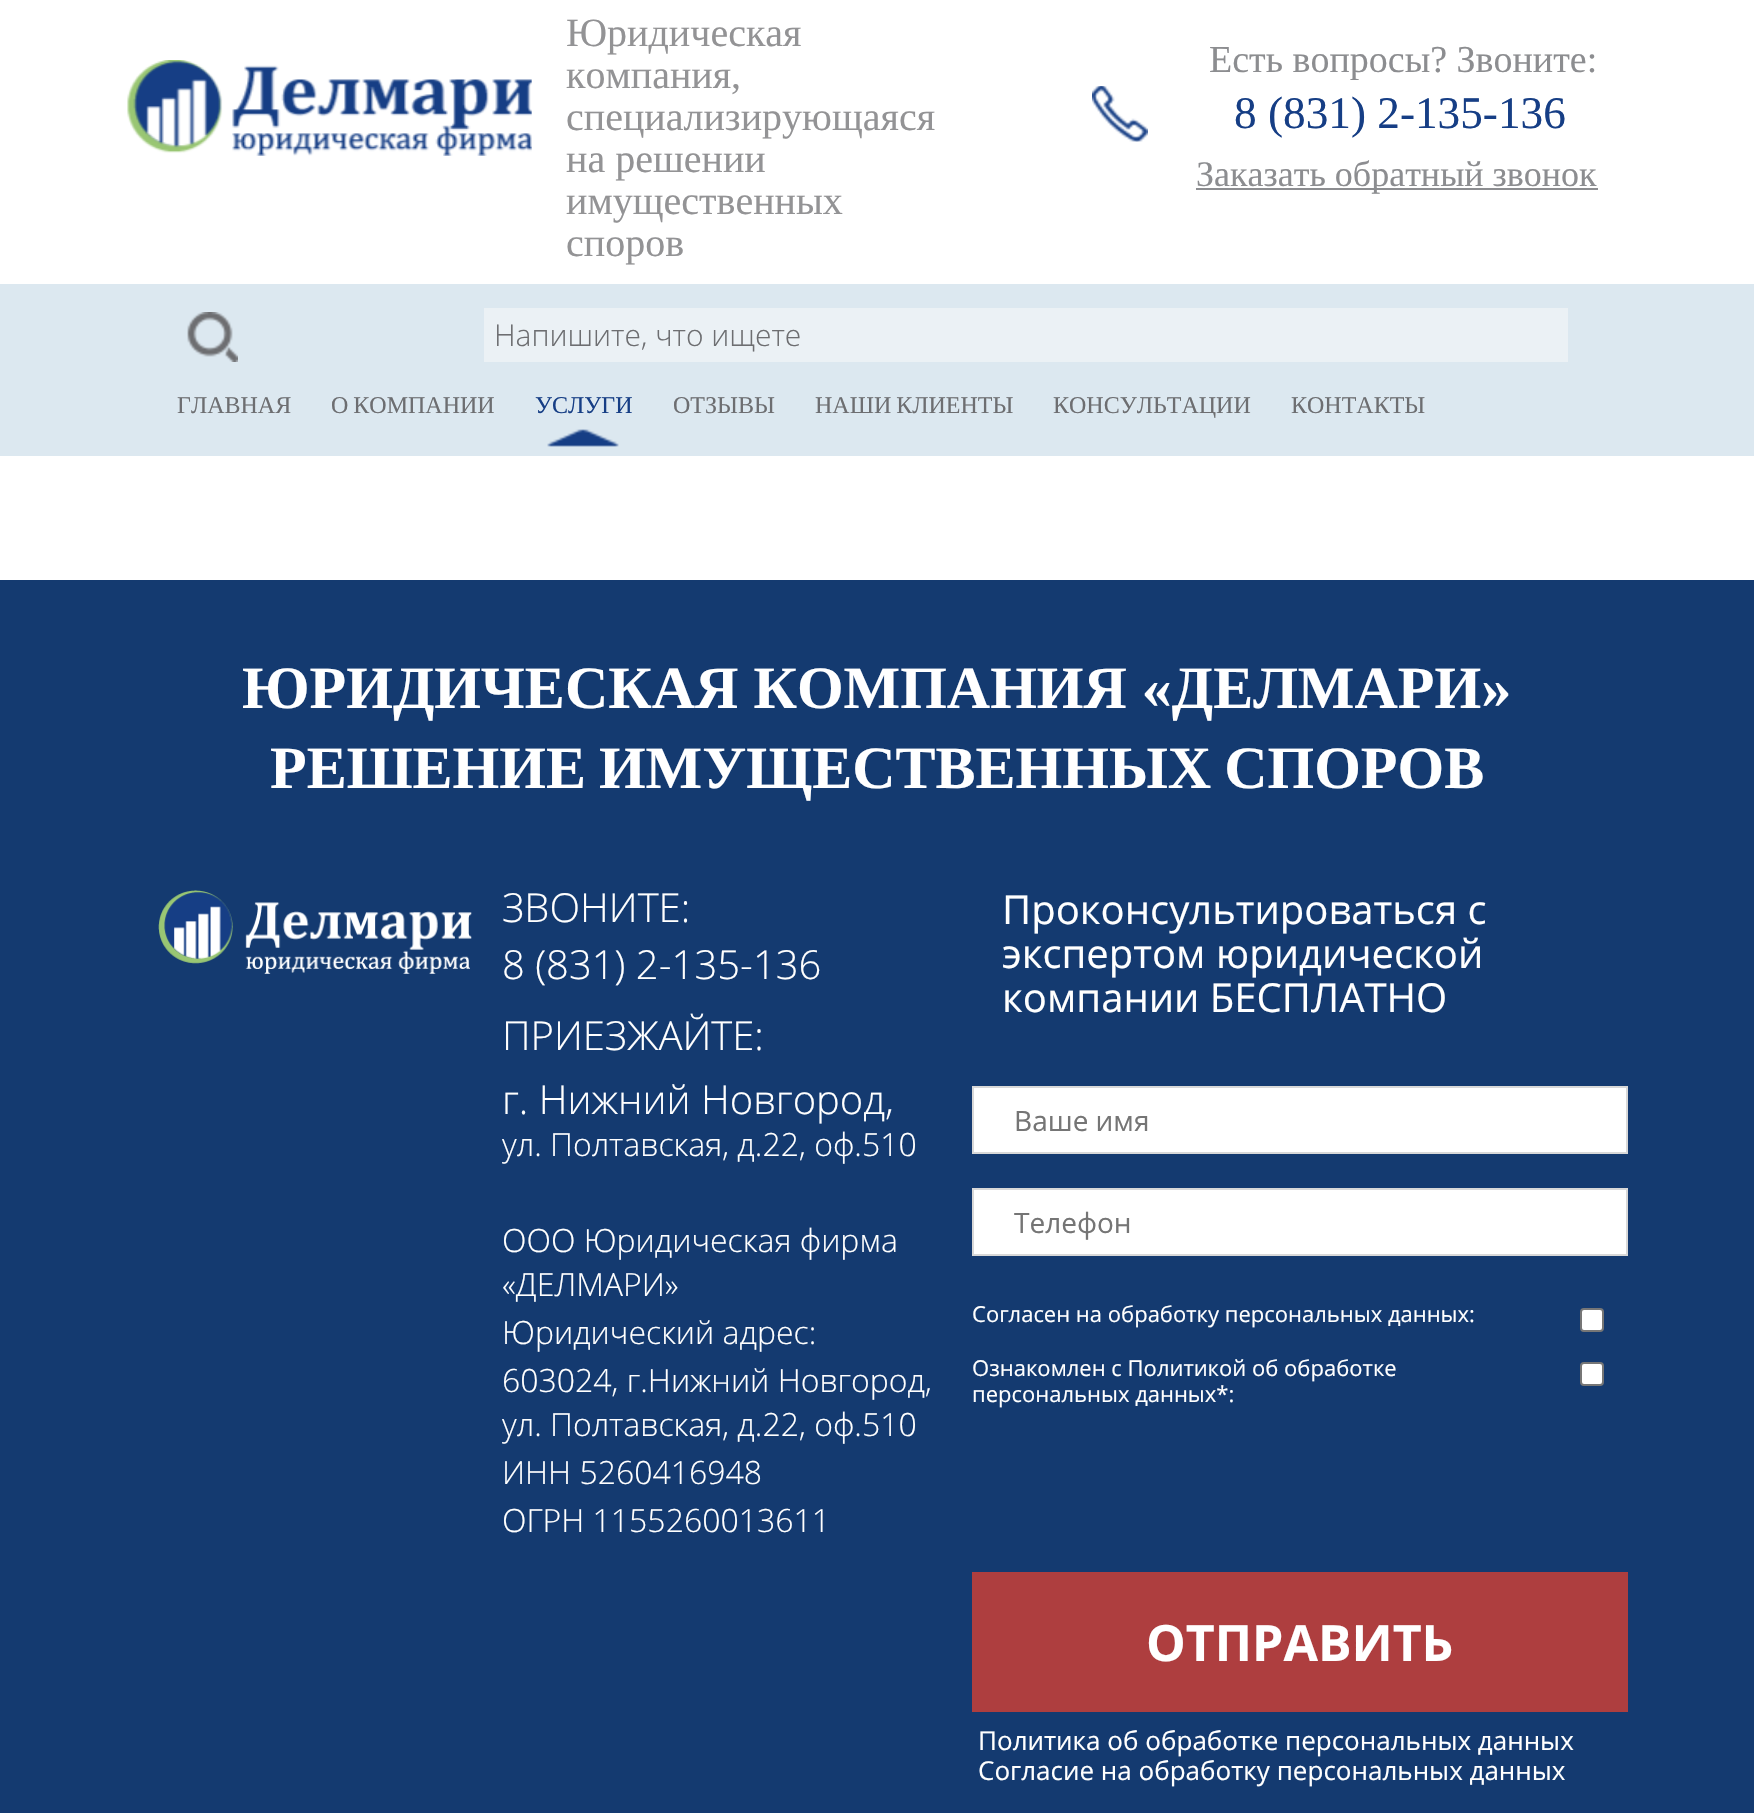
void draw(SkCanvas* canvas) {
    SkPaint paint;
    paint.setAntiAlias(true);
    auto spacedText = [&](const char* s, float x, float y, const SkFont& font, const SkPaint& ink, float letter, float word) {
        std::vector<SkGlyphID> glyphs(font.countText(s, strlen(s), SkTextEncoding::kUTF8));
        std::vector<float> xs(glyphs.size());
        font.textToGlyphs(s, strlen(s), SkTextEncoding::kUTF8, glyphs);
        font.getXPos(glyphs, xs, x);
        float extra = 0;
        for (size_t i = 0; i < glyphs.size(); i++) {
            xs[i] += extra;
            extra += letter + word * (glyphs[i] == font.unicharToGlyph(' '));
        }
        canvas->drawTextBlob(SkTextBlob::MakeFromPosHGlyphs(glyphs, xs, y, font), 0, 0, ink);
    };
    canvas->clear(0xFFFFFFFF);
    canvas->drawImageRect(SkImages::DeferredFromEncodedData(SkData::MakeFromFileName("img1.png")), SkRect::MakeXYWH(127, 60, 405, 96), SkSamplingOptions());
    SkFont font1(fontMgr->matchFamilyStyle("Liberation Serif", SkFontStyle::Normal()), 40);
    font1.setSubpixel(true);
    paint.setColor(0xFF939395);
    canvas->drawString("Юридическая", 566, 46, font1, paint);
    canvas->drawString("компания,", 566, 88, font1, paint);
    canvas->drawString("специализирующаяся", 566, 130, font1, paint);
    canvas->drawString("на решении", 566, 172, font1, paint);
    canvas->drawString("имущественных", 566, 214, font1, paint);
    canvas->drawString("споров", 566, 256, font1, paint);
    SkFont font2(fontMgr->matchFamilyStyle("Liberation Serif", SkFontStyle::Normal()), 38);
    font2.setSubpixel(true);
    paint.setColor(0xFF8C8D90);
    canvas->drawString("Есть вопросы? Звоните:", 1209, 72, font2, paint);
    canvas->drawImageRect(SkImages::DeferredFromEncodedData(SkData::MakeFromFileName("img2.png")), SkRect::MakeXYWH(1092, 86, 56, 56), SkSamplingOptions());
    SkFont font3(fontMgr->matchFamilyStyle("Liberation Serif", SkFontStyle::Normal()), 45.25f);
    font3.setSubpixel(true);
    paint.setColor(0xFF163E85);
    canvas->drawString("8 (831) 2-135-136", 1234, 128, font3, paint);
    paint.setColor(0xFF8C8D90);
    canvas->drawRect(SkRect::MakeXYWH(1196, 188, 402, 2), paint);
    SkFont font4(fontMgr->matchFamilyStyle("Liberation Serif", SkFontStyle::Normal()), 36);
    font4.setSubpixel(true);
    canvas->drawString("Заказать обратный звонок", 1196, 186, font4, paint);
    paint.setColor(0xFFDCE8F0);
    canvas->drawRect(SkRect::MakeXYWH(0, 284, 1754, 172), paint);
    canvas->drawImageRect(SkImages::DeferredFromEncodedData(SkData::MakeFromFileName("img3.png")), SkRect::MakeXYWH(187, 312, 51, 50), SkSamplingOptions());
    paint.setColor(0xFFEBF1F5);
    canvas->drawRect(SkRect::MakeXYWH(484, 308, 1084, 54), paint);
    SkFont font5(fontMgr->matchFamilyStyle("Open Sans", SkFontStyle(300, SkFontStyle::kNormal_Width, SkFontStyle::kUpright_Slant)), 30);
    font5.setSubpixel(true);
    paint.setColor(0xFF6D6E71);
    canvas->drawString("Напишите, что ищете", 494, 346, font5, paint);
    SkFont font6(fontMgr->matchFamilyStyle("Liberation Serif", SkFontStyle::Normal()), 24);
    font6.setSubpixel(true);
    canvas->drawString("ГЛАВНАЯ", 177, 413, font6, paint);
    spacedText("О КОМПАНИИ", 331, 413, font6, paint, 0, -1);
    canvas->drawImageRect(SkImages::DeferredFromEncodedData(SkData::MakeFromFileName("img4.png")), SkRect::MakeXYWH(547, 429, 72, 18), SkSamplingOptions());
    paint.setColor(0xFF163E85);
    canvas->drawString("УСЛУГИ", 535, 413, font6, paint);
    paint.setColor(0xFF6D6E71);
    canvas->drawString("ОТЗЫВЫ", 673, 413, font6, paint);
    spacedText("НАШИ КЛИЕНТЫ", 815, 413, font6, paint, 0, -1);
    canvas->drawString("КОНСУЛЬТАЦИИ", 1053, 413, font6, paint);
    canvas->drawString("КОНТАКТЫ", 1291, 413, font6, paint);
    paint.setColor(0xFF143A70);
    canvas->drawRect(SkRect::MakeXYWH(0, 580, 1754, 1233), paint);
    SkFont font7(fontMgr->matchFamilyStyle("Liberation Serif", SkFontStyle::Bold()), 60);
    font7.setSubpixel(true);
    paint.setColor(0xFFFFFFFF);
    canvas->drawString("ЮРИДИЧЕСКАЯ КОМПАНИЯ «ДЕЛМАРИ»", 242, 708, font7, paint);
    spacedText("РЕШЕНИЕ ИМУЩЕСТВЕННЫХ СПОРОВ", 270, 788, font7, paint, 0, -2);
    canvas->drawImageRect(SkImages::DeferredFromEncodedData(SkData::MakeFromFileName("img5.png")), SkRect::MakeXYWH(158, 890, 314, 84), SkSamplingOptions());
    SkFont font8(fontMgr->matchFamilyStyle("Open Sans", SkFontStyle(300, SkFontStyle::kNormal_Width, SkFontStyle::kUpright_Slant)), 40);
    font8.setSubpixel(true);
    canvas->drawString("ЗВОНИТЕ:", 502, 922, font8, paint);
    canvas->drawString("8 (831) 2-135-136", 502, 979, font8, paint);
    canvas->drawString("ПРИЕЗЖАЙТЕ:", 502, 1050, font8, paint);
    canvas->drawString("г. Нижний Новгород,", 502, 1114, font8, paint);
    SkFont font9(fontMgr->matchFamilyStyle("Open Sans", SkFontStyle(300, SkFontStyle::kNormal_Width, SkFontStyle::kUpright_Slant)), 32);
    font9.setSubpixel(true);
    canvas->drawString("ул. Полтавская, д.22, оф.510", 502, 1156, font9, paint);
    canvas->drawString("ООО Юридическая фирма", 502, 1252, font9, paint);
    canvas->drawString("«ДЕЛМАРИ»", 502, 1296, font9, paint);
    canvas->drawString("Юридический адрес:", 502, 1344, font9, paint);
    canvas->drawString("603024, г.Нижний Новгород,", 502, 1392, font9, paint);
    canvas->drawString("ул. Полтавская, д.22, оф.510", 502, 1436, font9, paint);
    canvas->drawString("ИНН 5260416948", 502, 1484, font9, paint);
    canvas->drawString("ОГРН 1155260013611", 502, 1532, font9, paint);
    SkFont font10(fontMgr->matchFamilyStyle("Open Sans", SkFontStyle::Normal()), 40);
    font10.setSubpixel(true);
    canvas->drawString("Проконсультироваться с", 1002, 924, font10, paint);
    canvas->drawString("экспертом юридической", 1002, 968, font10, paint);
    canvas->drawString("компании БЕСПЛАТНО", 1002, 1012, font10, paint);
    canvas->drawRect(SkRect::MakeXYWH(973, 1087, 654, 66), paint);
    paint.setStyle(SkPaint::kStroke_Style);
    paint.setStrokeWidth(2);
    paint.setColor(0xFFD8D8D8);
    canvas->drawRect(SkRect::MakeXYWH(973, 1087, 654, 66), paint);
    SkFont font11(fontMgr->matchFamilyStyle("Open Sans", SkFontStyle::Normal()), 28);
    font11.setSubpixel(true);
    paint.setStyle(SkPaint::kFill_Style);
    paint.setColor(0xFF757575);
    canvas->drawString("Ваше имя", 1014, 1131, font11, paint);
    paint.setColor(0xFFFFFFFF);
    canvas->drawRect(SkRect::MakeXYWH(973, 1189, 654, 66), paint);
    paint.setStyle(SkPaint::kStroke_Style);
    paint.setColor(0xFFD8D8D8);
    canvas->drawRect(SkRect::MakeXYWH(973, 1189, 654, 66), paint);
    paint.setStyle(SkPaint::kFill_Style);
    paint.setColor(0xFF757575);
    canvas->drawString("Телефон", 1014, 1233, font11, paint);
    SkFont font12(fontMgr->matchFamilyStyle("Open Sans", SkFontStyle::Normal()), 22);
    font12.setSubpixel(true);
    paint.setColor(0xFFFFFFFF);
    canvas->drawString("Согласен на обработку персональных данных:", 972, 1322, font12, paint);
    canvas->drawRoundRect(SkRect::MakeXYWH(1581, 1309, 22, 22), 3, 3, paint);
    paint.setStyle(SkPaint::kStroke_Style);
    paint.setColor(0xFF767676);
    canvas->drawRoundRect(SkRect::MakeXYWH(1581, 1309, 22, 22), 3, 3, paint);
    paint.setStyle(SkPaint::kFill_Style);
    paint.setColor(0xFFFFFFFF);
    canvas->drawString("Ознакомлен с Политикой об обработке", 972, 1376, font12, paint);
    canvas->drawString("персональных данных*:", 972, 1402, font12, paint);
    canvas->drawRoundRect(SkRect::MakeXYWH(1581, 1363, 22, 22), 3, 3, paint);
    paint.setStyle(SkPaint::kStroke_Style);
    paint.setColor(0xFF767676);
    canvas->drawRoundRect(SkRect::MakeXYWH(1581, 1363, 22, 22), 3, 3, paint);
    paint.setStyle(SkPaint::kFill_Style);
    paint.setColor(0xFFAE3E3F);
    canvas->drawRect(SkRect::MakeXYWH(972, 1572, 656, 140), paint);
    SkFont font13(fontMgr->matchFamilyStyle("Open Sans", SkFontStyle::Bold()), 50);
    font13.setSubpixel(true);
    paint.setColor(0xFFFFFFFF);
    canvas->drawString("ОТПРАВИТЬ", 1146, 1661, font13, paint);
    SkFont font14(fontMgr->matchFamilyStyle("Open Sans", SkFontStyle::Normal()), 26);
    font14.setSubpixel(true);
    canvas->drawString("Политика об обработке персональных данных", 978, 1750, font14, paint);
    canvas->drawString("Согласие на обработку персональных данных", 978, 1780, font14, paint);
}
